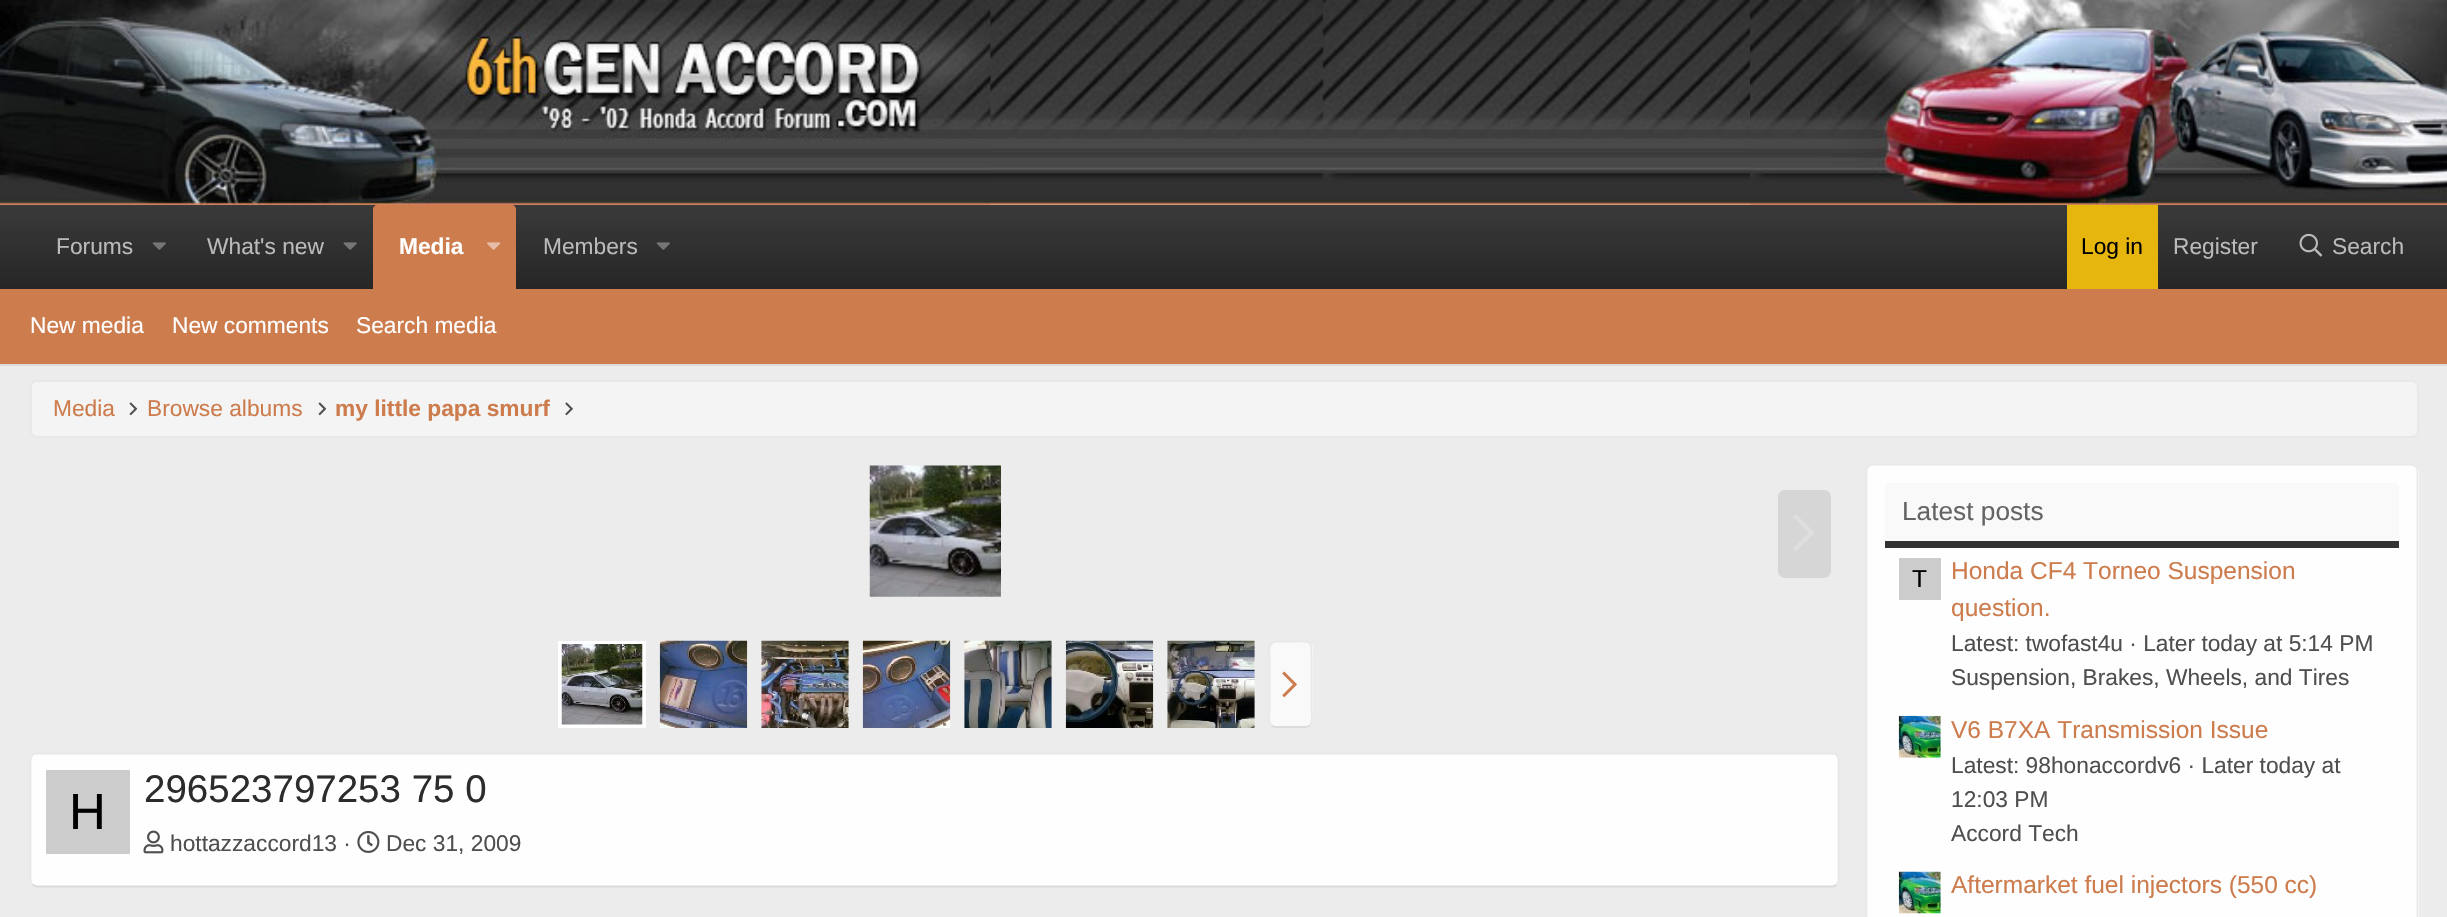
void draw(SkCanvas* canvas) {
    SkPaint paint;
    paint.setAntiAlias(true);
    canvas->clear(0xFFECECEC);
    canvas->drawImageRect(SkImages::DeferredFromEncodedData(SkData::MakeFromFileName("img1.png")), SkRect::MakeXYWH(0, 0, 2447, 205), SkSamplingOptions());
    canvas->drawImageRect(SkImages::DeferredFromEncodedData(SkData::MakeFromFileName("img2.png")), SkRect::MakeXYWH(0, 0, 991, 205), SkSamplingOptions());
    canvas->drawImageRect(SkImages::DeferredFromEncodedData(SkData::MakeFromFileName("img3.png")), SkRect::MakeXYWH(1750, 0, 697, 205), SkSamplingOptions());
    {
        const SkColor colors[] = {0xFF3A3A3A, 0xFF262626};
        const float stops[] = {0, 1};
        const SkPoint ends[] = {{1224, 205}, {1224, 289}};
        paint.setShader(SkGradientShader::MakeLinear(ends, colors, stops, 2, SkTileMode::kClamp));
        paint.setAlpha(255);
    }
    canvas->drawRect(SkRect::MakeXYWH(0, 205, 2447, 84), paint);
    SkFont font1(fontMgr->matchFamilyStyle("Liberation Sans", SkFontStyle::Normal()), 22.75f);
    font1.setSubpixel(true);
    paint.setShader(nullptr);
    paint.setColor(0xFFBABABA);
    canvas->drawString("Forums", 56, 254, font1, paint);
    canvas->drawImageRect(SkImages::DeferredFromEncodedData(SkData::MakeFromFileName("img4.png")), SkRect::MakeXYWH(152, 242, 14, 8), SkSamplingOptions());
    canvas->drawString("What's new", 207, 254, font1, paint);
    canvas->drawImageRect(SkImages::DeferredFromEncodedData(SkData::MakeFromFileName("img5.png")), SkRect::MakeXYWH(343, 242, 14, 8), SkSamplingOptions());
    paint.setColor(0xFFCD7C4D);
    canvas->drawPath(SkPathBuilder().moveTo(377, 205).lineTo(512, 205).cubicTo(514, 205, 516, 207, 516, 209).lineTo(516, 289).lineTo(373, 289).lineTo(373, 209).cubicTo(373, 207, 375, 205, 377, 205).close().detach(), paint);
    SkFont font2(fontMgr->matchFamilyStyle("Liberation Sans", SkFontStyle::Bold()), 22.75f);
    font2.setSubpixel(true);
    paint.setColor(0xFFFFFFFF);
    canvas->drawString("Media", 399, 254, font2, paint);
    canvas->drawImageRect(SkImages::DeferredFromEncodedData(SkData::MakeFromFileName("img6.png")), SkRect::MakeXYWH(487, 242, 14, 8), SkSamplingOptions());
    paint.setColor(0xFFBABABA);
    canvas->drawString("Members", 543, 254, font1, paint);
    canvas->drawImageRect(SkImages::DeferredFromEncodedData(SkData::MakeFromFileName("img4.png")), SkRect::MakeXYWH(656, 242, 14, 8), SkSamplingOptions());
    paint.setColor(0xFFE6B60E);
    canvas->drawRect(SkRect::MakeXYWH(2067, 205, 91, 84), paint);
    paint.setColor(0xFF000000);
    canvas->drawString("Log in", 2081, 254, font1, paint);
    paint.setColor(0xFFBABABA);
    canvas->drawString("Register", 2173, 254, font1, paint);
    canvas->drawImageRect(SkImages::DeferredFromEncodedData(SkData::MakeFromFileName("img7.png")), SkRect::MakeXYWH(2299, 233, 24, 24), SkSamplingOptions());
    canvas->drawString("Search", 2332, 254, font1, paint);
    paint.setColor(0xFFCD7C4D);
    canvas->drawRect(SkRect::MakeXYWH(0, 289, 2447, 75), paint);
    paint.setColor(0xFFDBDBDB);
    canvas->drawRect(SkRect::MakeXYWH(0, 364, 2447, 2), paint);
    paint.setColor(0xFFFFFFFF);
    canvas->drawString("New media", 30, 333, font1, paint);
    canvas->drawString("New comments", 172, 333, font1, paint);
    canvas->drawString("Search media", 356, 333, font1, paint);
    paint.setColor(0xFFF4F4F4);
    canvas->drawRoundRect(SkRect::MakeXYWH(31, 381, 2387, 56), 6, 6, paint);
    paint.setStyle(SkPaint::kStroke_Style);
    paint.setStrokeWidth(2);
    paint.setColor(0xFFE8E8E8);
    canvas->drawRoundRect(SkRect::MakeXYWH(31, 381, 2387, 56), 6, 6, paint);
    paint.setStyle(SkPaint::kFill_Style);
    paint.setColor(0xFFCD7C4D);
    canvas->drawString("Media", 53, 416, font1, paint);
    canvas->drawImageRect(SkImages::DeferredFromEncodedData(SkData::MakeFromFileName("img8.png")), SkRect::MakeXYWH(129, 402, 9, 14), SkSamplingOptions());
    canvas->drawString("Browse albums", 147, 416, font1, paint);
    canvas->drawImageRect(SkImages::DeferredFromEncodedData(SkData::MakeFromFileName("img8.png")), SkRect::MakeXYWH(318, 402, 9, 14), SkSamplingOptions());
    canvas->save();
    canvas->clipRect(SkRect::MakeXYWH(336, 392, 214, 33));
    canvas->drawString("my little papa smurf", 335, 416, font2, paint);
    canvas->restore();
    canvas->drawImageRect(SkImages::DeferredFromEncodedData(SkData::MakeFromFileName("img9.png")), SkRect::MakeXYWH(565, 402, 8, 14), SkSamplingOptions());
    canvas->drawImageRect(SkImages::DeferredFromEncodedData(SkData::MakeFromFileName("img10.png")), SkRect::MakeXYWH(869, 465, 132, 132), SkSamplingOptions());
    paint.setColor(0xFFD6D6D6);
    canvas->drawRoundRect(SkRect::MakeXYWH(1778, 490, 53, 88), 7, 7, paint);
    canvas->drawImageRect(SkImages::DeferredFromEncodedData(SkData::MakeFromFileName("img11.png")), SkRect::MakeXYWH(1793, 514, 21, 37), SkSamplingOptions());
    paint.setStyle(SkPaint::kStroke_Style);
    paint.setStrokeWidth(4);
    paint.setColor(0xFFFFFFFF);
    canvas->drawRect(SkRect::MakeXYWH(560, 643, 84, 83), paint);
    canvas->drawImageRect(SkImages::DeferredFromEncodedData(SkData::MakeFromFileName("img12.png")), SkRect::MakeXYWH(561, 644, 82, 81), SkSamplingOptions());
    canvas->drawImageRect(SkImages::DeferredFromEncodedData(SkData::MakeFromFileName("img13.png")), SkRect::MakeXYWH(659, 640, 89, 88), SkSamplingOptions());
    canvas->drawImageRect(SkImages::DeferredFromEncodedData(SkData::MakeFromFileName("img14.png")), SkRect::MakeXYWH(761, 640, 88, 88), SkSamplingOptions());
    canvas->drawImageRect(SkImages::DeferredFromEncodedData(SkData::MakeFromFileName("img15.png")), SkRect::MakeXYWH(862, 640, 89, 88), SkSamplingOptions());
    canvas->drawImageRect(SkImages::DeferredFromEncodedData(SkData::MakeFromFileName("img16.png")), SkRect::MakeXYWH(964, 640, 88, 88), SkSamplingOptions());
    canvas->drawImageRect(SkImages::DeferredFromEncodedData(SkData::MakeFromFileName("img17.png")), SkRect::MakeXYWH(1065, 640, 89, 88), SkSamplingOptions());
    canvas->drawImageRect(SkImages::DeferredFromEncodedData(SkData::MakeFromFileName("img18.png")), SkRect::MakeXYWH(1167, 640, 88, 88), SkSamplingOptions());
    paint.setStyle(SkPaint::kFill_Style);
    paint.setColor(0xFFF9F9F9);
    canvas->drawRoundRect(SkRect::MakeXYWH(1269, 641, 44, 87), 7, 7, paint);
    paint.setStyle(SkPaint::kStroke_Style);
    paint.setStrokeWidth(1.8f);
    paint.setColor(0xFFDBDBDB);
    canvas->drawPath(SkPathBuilder().moveTo(1310, 725.5f).cubicTo(1308.5f, 726.5f, 1307, 727, 1305.5f, 727).lineTo(1276, 727).cubicTo(1274, 727, 1272.5f, 726.5f, 1271.5f, 725.5f).detach(), paint);
    paint.setColor(0xFFE8E8E8);
    canvas->drawPath(SkPathBuilder().moveTo(1271.5f, 725.5f).cubicTo(1267.5f, 721.5f, 1269.5f, 711.5f, 1269.5f, 709).lineTo(1269.5f, 660).cubicTo(1269.5f, 655.5f, 1267, 643, 1274.5f, 641.5f).lineTo(1290.5f, 641.5f).cubicTo(1312.5f, 641.5f, 1311.5f, 638, 1311.5f, 660).lineTo(1311.5f, 709).cubicTo(1311.5f, 711.5f, 1313.5f, 721.5f, 1310, 725.5f).detach(), paint);
    canvas->drawImageRect(SkImages::DeferredFromEncodedData(SkData::MakeFromFileName("img19.png")), SkRect::MakeXYWH(1282, 671, 15, 27), SkSamplingOptions());
    paint.setStyle(SkPaint::kFill_Style);
    paint.setColor(0xFFFEFEFE);
    canvas->drawRoundRect(SkRect::MakeXYWH(30, 753, 1809, 134), 7, 7, paint);
    paint.setStyle(SkPaint::kStroke_Style);
    paint.setColor(0xFFDBDBDB);
    canvas->drawPath(SkPathBuilder().moveTo(1836.5f, 884.5f).cubicTo(1835.5f, 885.5f, 1834, 886.5f, 1832, 886.5f).lineTo(37, 886.5f).cubicTo(35, 886.5f, 33.5f, 885.5f, 32.5f, 884.5f).detach(), paint);
    paint.setColor(0xFFE8E8E8);
    canvas->drawPath(SkPathBuilder().moveTo(32.5f, 884.5f).cubicTo(31.5f, 883.5f, 30.5f, 882, 30.5f, 880).lineTo(30.5f, 759.5f).cubicTo(30.5f, 758, 31.5f, 756.5f, 32.5f, 755).cubicTo(33.5f, 754, 35, 753.5f, 37, 753.5f).lineTo(1832, 753.5f).cubicTo(1834, 753.5f, 1835.5f, 754, 1836.5f, 755).cubicTo(1837.5f, 756.5f, 1838.5f, 758, 1838.5f, 759.5f).lineTo(1838.5f, 880).cubicTo(1838.5f, 882, 1837.5f, 883.5f, 1836.5f, 884.5f).detach(), paint);
    paint.setStyle(SkPaint::kFill_Style);
    paint.setColor(0xFFCCCCCC);
    canvas->drawRect(SkRect::MakeXYWH(46, 770, 84, 84), paint);
    SkFont font3(fontMgr->matchFamilyStyle("Liberation Sans", SkFontStyle::Normal()), 51);
    font3.setSubpixel(true);
    paint.setColor(0xFF000000);
    canvas->drawString("H", 69, 829, font3, paint);
    SkFont font4(fontMgr->matchFamilyStyle("Liberation Sans", SkFontStyle::Normal()), 38.5f);
    font4.setSubpixel(true);
    paint.setColor(0xFF2C2C2C);
    canvas->drawString("296523797253 75 0", 144, 802, font4, paint);
    canvas->drawImageRect(SkImages::DeferredFromEncodedData(SkData::MakeFromFileName("img20.png")), SkRect::MakeXYWH(143, 830, 21, 24), SkSamplingOptions());
    paint.setColor(0xFF4F4F4F);
    canvas->drawString("hottazzaccord13 ·", 170, 851, font1, paint);
    canvas->drawImageRect(SkImages::DeferredFromEncodedData(SkData::MakeFromFileName("img21.png")), SkRect::MakeXYWH(357, 830, 23, 23), SkSamplingOptions());
    canvas->drawString("Dec 31, 2009", 386, 851, font1, paint);
    paint.setColor(0xFFFEFEFE);
    canvas->drawRoundRect(SkRect::MakeXYWH(1866, 464, 553, 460), 7, 7, paint);
    paint.setStyle(SkPaint::kStroke_Style);
    paint.setColor(0xFFE8E8E8);
    canvas->drawPath(SkPathBuilder().moveTo(1868, 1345).cubicTo(1867, 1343.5f, 1866.5f, 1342, 1866.5f, 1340.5f).lineTo(1866.5f, 471).cubicTo(1866.5f, 469, 1867, 467.5f, 1868, 466.5f).cubicTo(1869.5f, 465.5f, 1871, 464.5f, 1872.5f, 464.5f).lineTo(2411.5f, 464.5f).cubicTo(2413, 464.5f, 2414.5f, 465.5f, 2416, 466.5f).cubicTo(2417, 467.5f, 2417.5f, 469, 2417.5f, 471).lineTo(2417.5f, 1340.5f).cubicTo(2417.5f, 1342, 2417, 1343.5f, 2416, 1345).detach(), paint);
    paint.setStyle(SkPaint::kFill_Style);
    paint.setColor(0xFFF9F9F9);
    canvas->drawPath(SkPathBuilder().moveTo(1890, 483).lineTo(2394, 483).cubicTo(2397, 483, 2399, 485, 2399, 488).lineTo(2399, 548).lineTo(1885, 548).lineTo(1885, 488).cubicTo(1885, 485, 1887, 483, 1890, 483).close().detach(), paint);
    paint.setColor(0xFF323232);
    canvas->drawRect(SkRect::MakeXYWH(1885, 541, 514, 7), paint);
    SkFont font5(fontMgr->matchFamilyStyle("Liberation Sans", SkFontStyle::Normal()), 26.25f);
    font5.setSubpixel(true);
    paint.setColor(0xFF646464);
    canvas->drawString("Latest posts", 1902, 520, font5, paint);
    paint.setColor(0xFFCCCCCC);
    canvas->drawRect(SkRect::MakeXYWH(1899, 558, 42, 42), paint);
    SkFont font6(fontMgr->matchFamilyStyle("Liberation Sans", SkFontStyle::Normal()), 24.5f);
    font6.setSubpixel(true);
    paint.setColor(0xFF000000);
    canvas->drawString("T", 1912, 587, font6, paint);
    paint.setColor(0xFFCD7C4D);
    canvas->drawString("Honda CF4 Torneo Suspension", 1951, 579, font6, paint);
    canvas->drawString("question.", 1951, 616, font6, paint);
    paint.setColor(0xFF4F4F4F);
    canvas->drawString("Latest: twofast4u · Later today at 5:14 PM", 1951, 651, font1, paint);
    canvas->drawString("Suspension, Brakes, Wheels, and Tires", 1951, 685, font1, paint);
    canvas->drawImageRect(SkImages::DeferredFromEncodedData(SkData::MakeFromFileName("img22.png")), SkRect::MakeXYWH(1898, 715, 43, 43), SkSamplingOptions());
    paint.setColor(0xFFCD7C4D);
    canvas->drawString("V6 B7XA Transmission Issue", 1951, 738, font6, paint);
    paint.setColor(0xFF4F4F4F);
    canvas->drawString("Latest: 98honaccordv6 · Later today at", 1951, 773, font1, paint);
    canvas->drawString("12:03 PM", 1951, 807, font1, paint);
    canvas->drawString("Accord Tech", 1951, 841, font1, paint);
    canvas->drawImageRect(SkImages::DeferredFromEncodedData(SkData::MakeFromFileName("img23.png")), SkRect::MakeXYWH(1898, 871, 43, 43), SkSamplingOptions());
    paint.setColor(0xFFCD7C4D);
    canvas->drawString("Aftermarket fuel injectors (550 cc)", 1951, 893, font6, paint);
}
